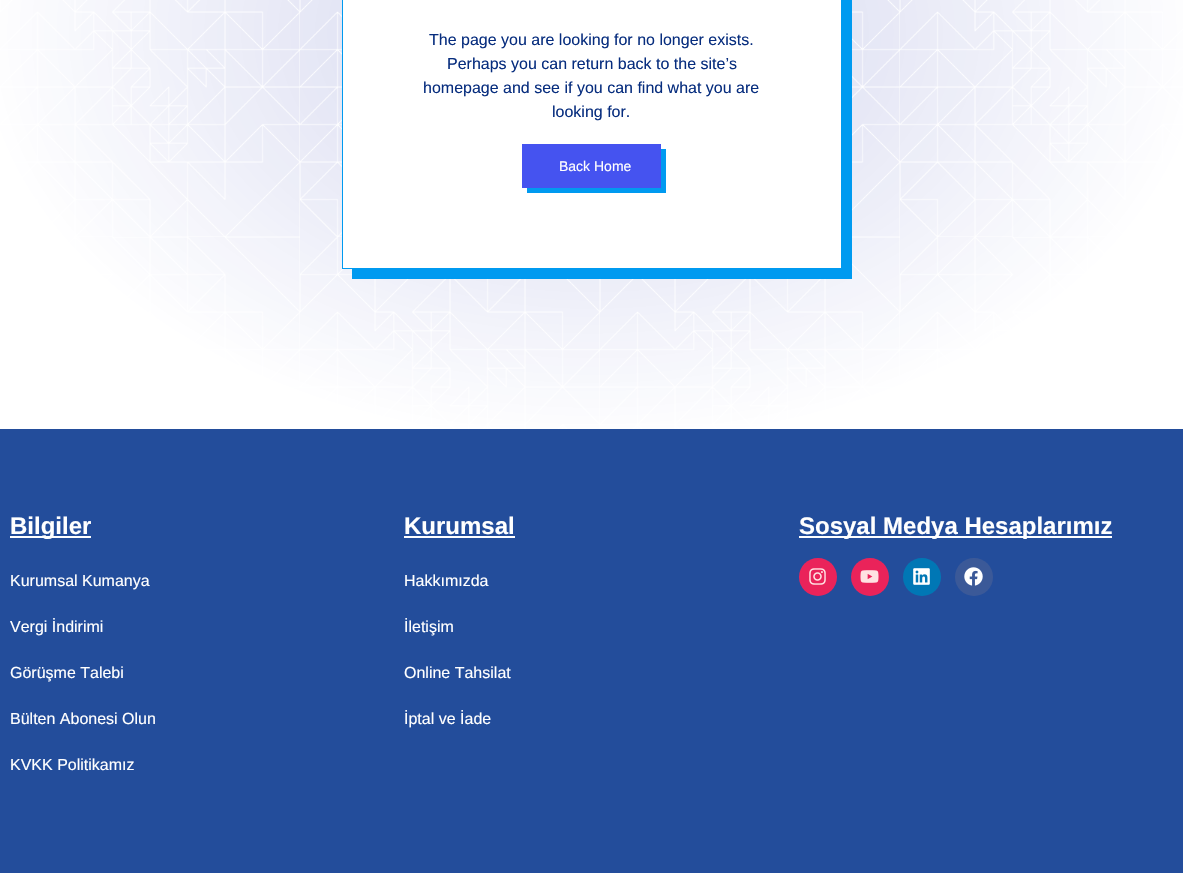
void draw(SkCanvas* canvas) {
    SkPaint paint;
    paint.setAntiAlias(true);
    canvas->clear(0xFF1825A6);
    canvas->drawImageRect(SkImages::DeferredFromEncodedData(SkData::MakeFromFileName("img1.png")), SkRect::MakeXYWH(0, 0, 1183, 429), SkSamplingOptions());
    {
        const SkColor colors[] = {0xCCFFFFFF, 0xFFFFFFFF};
        const float stops[] = {0, 0.75f};
        SkMatrix m = SkMatrix::Translate(592, 33).preScale(837, 560);
        paint.setShader(SkGradientShader::MakeRadial({0, 0}, 1, colors, stops, 2, SkTileMode::kClamp, 0, &m));
        paint.setAlpha(255);
    }
    canvas->drawRect(SkRect::MakeXYWH(0, 0, 1183, 429), paint);
    paint.setShader(nullptr);
    paint.setColor(0xFF009AF0);
    canvas->drawPath(SkPathBuilder().moveTo(352, 269).lineTo(352, 279).lineTo(852, 279).lineTo(852, -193).lineTo(842, -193).lineTo(842, 269).close().detach(), paint);
    paint.setColor(0xFFFFFFFF);
    canvas->drawRect(SkRect::MakeXYWH(342.5f, -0.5f, 499, 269), paint);
    paint.setStyle(SkPaint::kStroke_Style);
    paint.setStrokeWidth(1);
    paint.setColor(0xFF009AF0);
    canvas->drawRect(SkRect::MakeXYWH(342.5f, -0.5f, 499, 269), paint);
    SkFont font1(fontMgr->matchFamilyStyle("Liberation Sans", SkFontStyle::Normal()), 16);
    font1.setSubpixel(true);
    paint.setStyle(SkPaint::kFill_Style);
    paint.setColor(0xFF072D7E);
    canvas->drawString("The page you are looking for no longer exists.", 429, 45, font1, paint);
    canvas->drawString("Perhaps you can return back to the site’s", 447, 69, font1, paint);
    canvas->drawString("homepage and see if you can find what you are", 423, 93, font1, paint);
    canvas->drawString("looking for.", 552, 117, font1, paint);
    paint.setColor(0xFF009AF0);
    canvas->drawPath(SkPathBuilder().moveTo(527, 188).lineTo(527, 193).lineTo(666, 193).lineTo(666, 149).lineTo(661, 149).lineTo(661, 188).close().detach(), paint);
    paint.setColor(0xFF4553F0);
    canvas->drawRect(SkRect::MakeXYWH(522, 144, 139, 44), paint);
    SkFont font2(fontMgr->matchFamilyStyle("Liberation Sans", SkFontStyle::Normal()), 14);
    font2.setSubpixel(true);
    paint.setColor(0xFFFFFFFF);
    canvas->drawString("Back Home", 559, 171, font2, paint);
    paint.setColor(0xFF234D9B);
    canvas->drawRect(SkRect::MakeXYWH(0, 429, 1183, 444), paint);
    paint.setColor(0xFFFFFFFF);
    canvas->drawRect(SkRect::MakeXYWH(10, 536, 81, 2), paint);
    SkFont font3(fontMgr->matchFamilyStyle("Liberation Sans", SkFontStyle::Bold()), 24);
    font3.setSubpixel(true);
    canvas->drawString("Bilgiler", 10, 534, font3, paint);
    canvas->drawString("Kurumsal Kumanya", 10, 586, font1, paint);
    canvas->drawString("Vergi İndirimi", 10, 632, font1, paint);
    canvas->drawString("Görüşme Talebi", 10, 678, font1, paint);
    canvas->drawString("Bülten Abonesi Olun", 10, 724, font1, paint);
    canvas->drawString("KVKK Politikamız", 10, 770, font1, paint);
    canvas->drawString("Kurumsal", 404, 534, font3, paint);
    canvas->drawRect(SkRect::MakeXYWH(404, 536, 111, 2), paint);
    canvas->drawString("Hakkımızda", 404, 586, font1, paint);
    canvas->drawString("İletişim", 404, 632, font1, paint);
    canvas->drawString("Online Tahsilat", 404, 678, font1, paint);
    canvas->drawString("İptal ve İade", 404, 724, font1, paint);
    canvas->drawRect(SkRect::MakeXYWH(799, 536, 313, 2), paint);
    canvas->drawString("Sosyal Medya Hesaplarımız", 799, 534, font3, paint);
    paint.setColor(0xFFEA235A);
    canvas->drawCircle(818, 577, 19, paint);
    canvas->drawImageRect(SkImages::DeferredFromEncodedData(SkData::MakeFromFileName("img2.png")), SkRect::MakeXYWH(809, 568, 17, 17), SkSamplingOptions());
    canvas->drawCircle(870, 577, 19, paint);
    canvas->drawImageRect(SkImages::DeferredFromEncodedData(SkData::MakeFromFileName("img3.png")), SkRect::MakeXYWH(860, 570, 19, 13), SkSamplingOptions());
    paint.setColor(0xFF0077B5);
    canvas->drawCircle(922, 577, 19, paint);
    canvas->drawImageRect(SkImages::DeferredFromEncodedData(SkData::MakeFromFileName("img4.png")), SkRect::MakeXYWH(913, 568, 17, 17), SkSamplingOptions());
    paint.setColor(0xFF3B5998);
    canvas->drawCircle(974, 577, 19, paint);
    canvas->drawImageRect(SkImages::DeferredFromEncodedData(SkData::MakeFromFileName("img5.png")), SkRect::MakeXYWH(964, 567, 19, 19), SkSamplingOptions());
}
